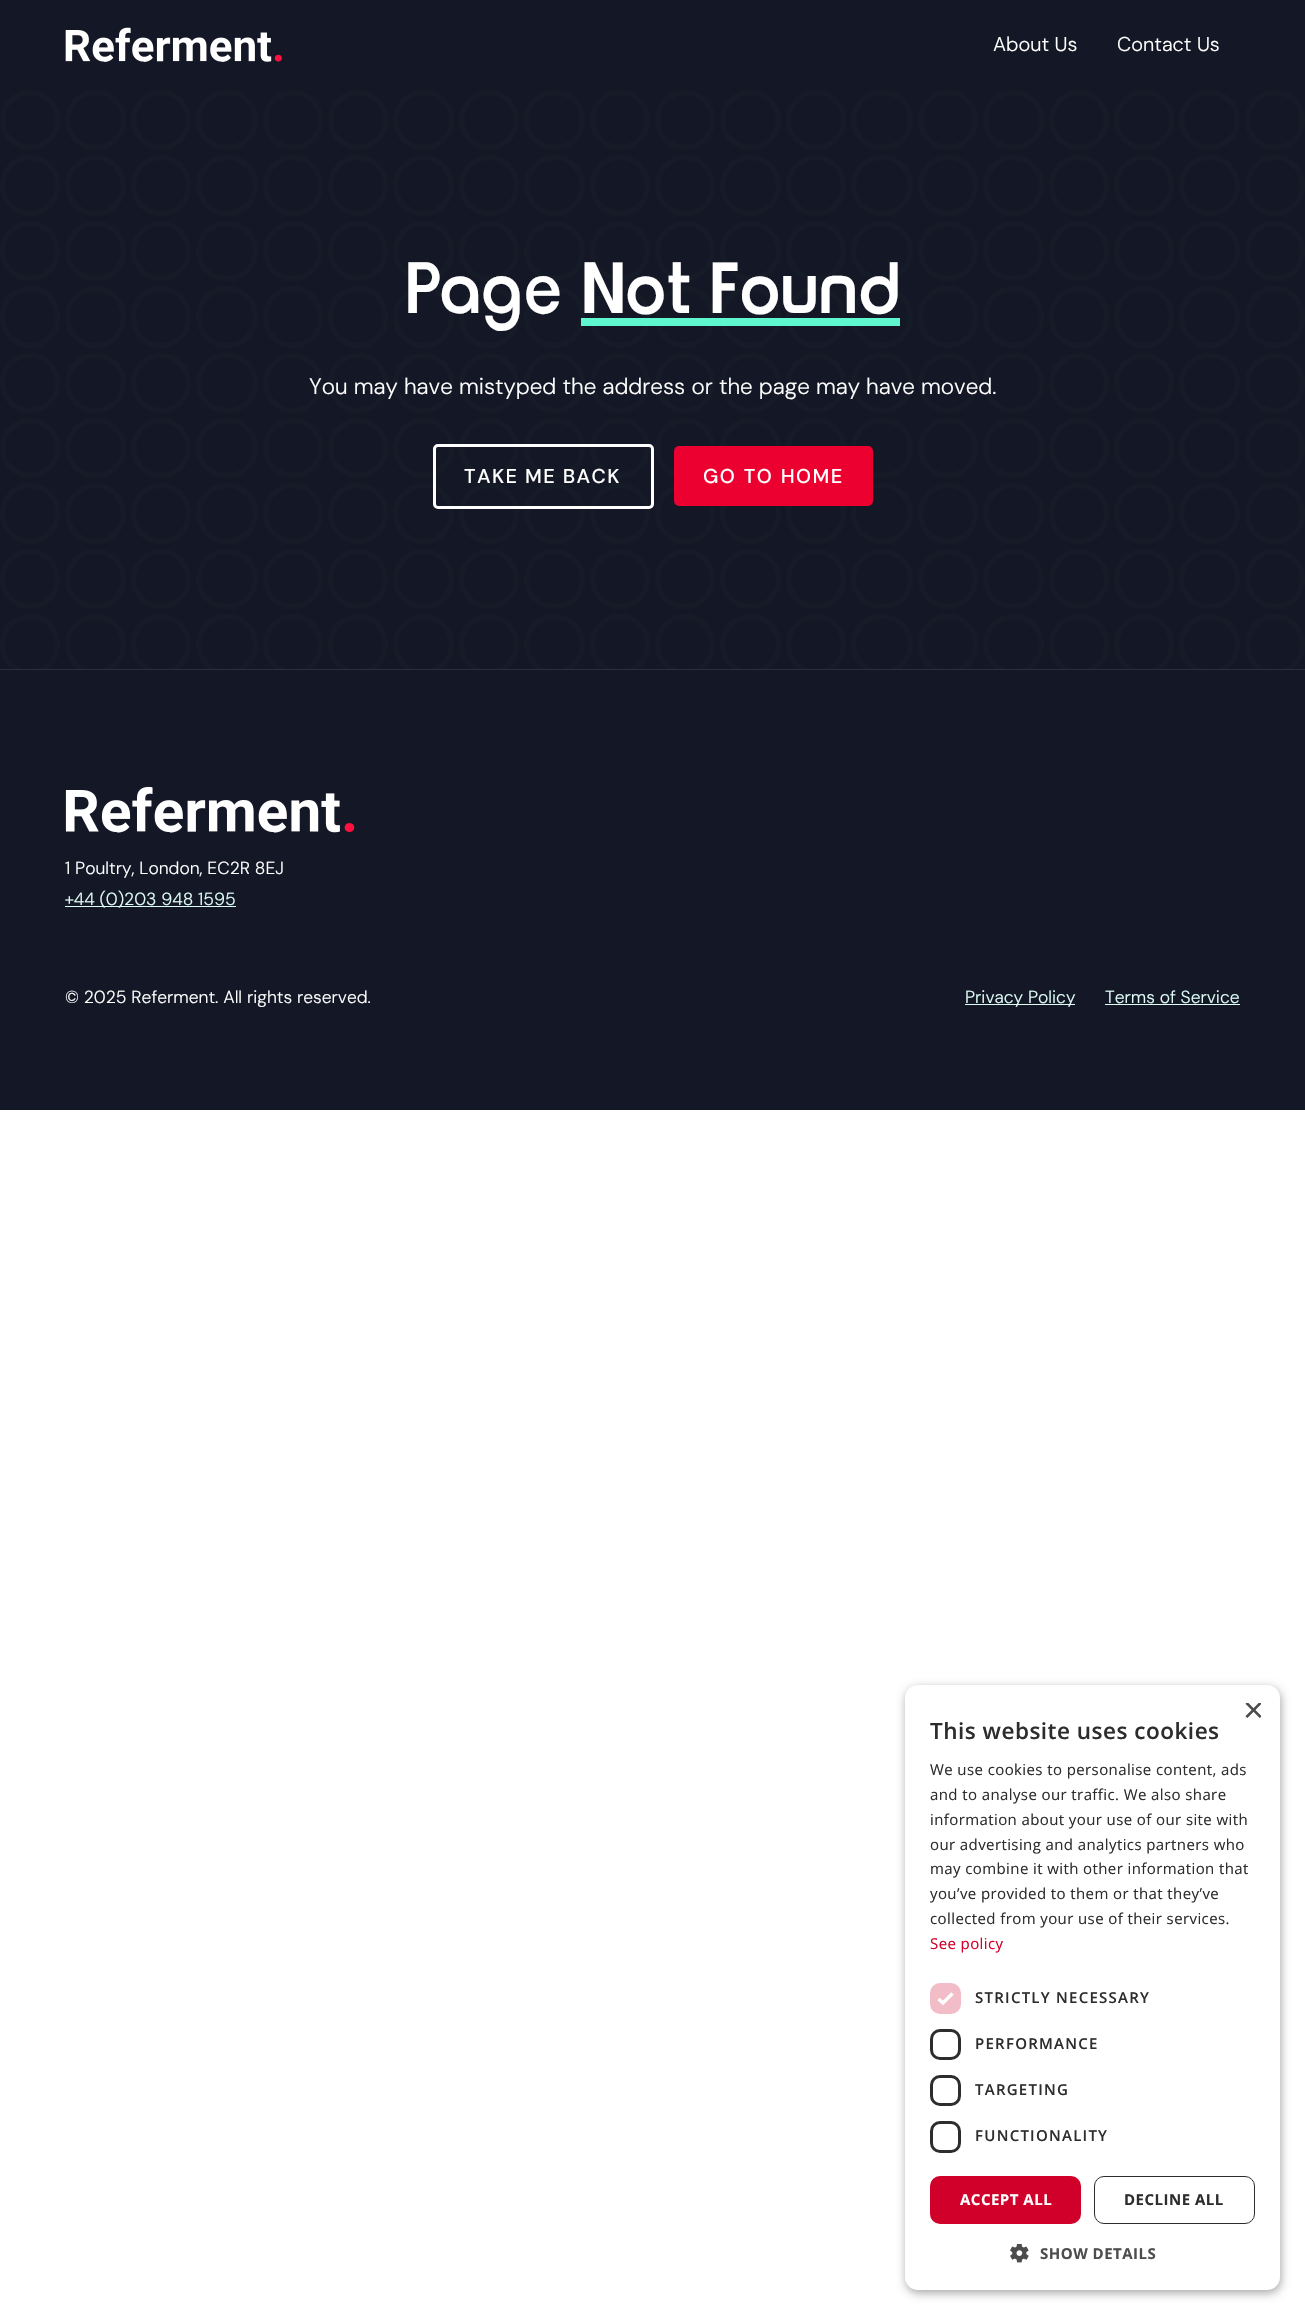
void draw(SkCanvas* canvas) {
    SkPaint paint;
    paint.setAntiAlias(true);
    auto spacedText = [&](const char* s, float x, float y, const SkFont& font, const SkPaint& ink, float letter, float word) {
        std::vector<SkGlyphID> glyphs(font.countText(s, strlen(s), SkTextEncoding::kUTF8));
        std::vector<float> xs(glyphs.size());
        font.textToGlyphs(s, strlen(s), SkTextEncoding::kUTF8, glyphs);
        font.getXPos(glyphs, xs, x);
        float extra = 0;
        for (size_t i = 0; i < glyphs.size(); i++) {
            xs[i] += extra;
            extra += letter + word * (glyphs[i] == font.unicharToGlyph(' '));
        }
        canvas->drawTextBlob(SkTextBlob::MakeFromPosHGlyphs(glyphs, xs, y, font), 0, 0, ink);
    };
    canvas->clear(0xFFFFFFFF);
    paint.setColor(0xFF141725);
    canvas->drawRect(SkRect::MakeXYWH(0, 0, 1305, 669), paint);
    canvas->drawImageRect(SkImages::DeferredFromEncodedData(SkData::MakeFromFileName("img1.png")), SkRect::MakeXYWH(65, 27, 217, 35), SkSamplingOptions());
    SkFont font1(fontMgr->matchFamilyStyle("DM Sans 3", SkFontStyle(300, SkFontStyle::kNormal_Width, SkFontStyle::kUpright_Slant)), 20);
    font1.setSubpixel(true);
    paint.setColor(0xFFFFFFFF);
    canvas->drawString("About Us", 993, 51, font1, paint);
    canvas->drawString("Contact Us", 1117, 51, font1, paint);
    paint.setStyle(SkPaint::kStroke_Style);
    paint.setStrokeWidth(5);
    paint.setColor(0xFF161B28);
    canvas->drawCircle(30, 120, 27.5f, paint);
    canvas->drawRoundRect(SkRect::MakeXYWH(67.5f, 92.5f, 56, 55), 27.5f, 27.5f, paint);
    canvas->drawCircle(161, 120, 27.5f, paint);
    canvas->drawRoundRect(SkRect::MakeXYWH(198.5f, 92.5f, 57, 55), 27.5f, 27.5f, paint);
    canvas->drawCircle(293, 120, 27.5f, paint);
    canvas->drawCircle(358, 120, 27.5f, paint);
    canvas->drawRoundRect(SkRect::MakeXYWH(395.5f, 92.5f, 56, 55), 27.5f, 27.5f, paint);
    canvas->drawCircle(489, 120, 27.5f, paint);
    canvas->drawRoundRect(SkRect::MakeXYWH(526.5f, 92.5f, 56, 55), 27.5f, 27.5f, paint);
    canvas->drawCircle(620, 120, 27.5f, paint);
    canvas->drawCircle(685, 120, 27.5f, paint);
    canvas->drawRoundRect(SkRect::MakeXYWH(722.5f, 92.5f, 56, 55), 27.5f, 27.5f, paint);
    canvas->drawCircle(816, 120, 27.5f, paint);
    canvas->drawRoundRect(SkRect::MakeXYWH(853.5f, 92.5f, 57, 55), 27.5f, 27.5f, paint);
    canvas->drawCircle(948, 120, 27.5f, paint);
    canvas->drawRoundRect(SkRect::MakeXYWH(985.5f, 92.5f, 56, 55), 27.5f, 27.5f, paint);
    canvas->drawCircle(1079, 120, 27.5f, paint);
    canvas->drawCircle(1144, 120, 27.5f, paint);
    canvas->drawRoundRect(SkRect::MakeXYWH(1181.5f, 92.5f, 56, 55), 27.5f, 27.5f, paint);
    canvas->drawCircle(1275, 120, 27.5f, paint);
    canvas->drawRoundRect(SkRect::MakeXYWH(2.5f, 157.5f, 55, 56), 27.5f, 27.5f, paint);
    canvas->drawCircle(95.5f, 185.5f, 28, paint);
    canvas->drawRoundRect(SkRect::MakeXYWH(133.5f, 157.5f, 55, 56), 27.5f, 27.5f, paint);
    canvas->drawRoundRect(SkRect::MakeXYWH(198.5f, 157.5f, 57, 56), 28, 28, paint);
    canvas->drawRoundRect(SkRect::MakeXYWH(265.5f, 157.5f, 55, 56), 27.5f, 27.5f, paint);
    canvas->drawRoundRect(SkRect::MakeXYWH(330.5f, 157.5f, 55, 56), 27.5f, 27.5f, paint);
    canvas->drawCircle(423.5f, 185.5f, 28, paint);
    canvas->drawRoundRect(SkRect::MakeXYWH(461.5f, 157.5f, 55, 56), 27.5f, 27.5f, paint);
    canvas->drawCircle(554.5f, 185.5f, 28, paint);
    canvas->drawRoundRect(SkRect::MakeXYWH(592.5f, 157.5f, 55, 56), 27.5f, 27.5f, paint);
    canvas->drawRoundRect(SkRect::MakeXYWH(657.5f, 157.5f, 55, 56), 27.5f, 27.5f, paint);
    canvas->drawCircle(750.5f, 185.5f, 28, paint);
    canvas->drawRoundRect(SkRect::MakeXYWH(788.5f, 157.5f, 55, 56), 27.5f, 27.5f, paint);
    canvas->drawRoundRect(SkRect::MakeXYWH(853.5f, 157.5f, 57, 56), 28, 28, paint);
    canvas->drawRoundRect(SkRect::MakeXYWH(920.5f, 157.5f, 55, 56), 27.5f, 27.5f, paint);
    canvas->drawCircle(1013.5f, 185.5f, 28, paint);
    canvas->drawRoundRect(SkRect::MakeXYWH(1051.5f, 157.5f, 55, 56), 27.5f, 27.5f, paint);
    canvas->drawRoundRect(SkRect::MakeXYWH(1116.5f, 157.5f, 55, 56), 27.5f, 27.5f, paint);
    canvas->drawCircle(1209.5f, 185.5f, 28, paint);
    canvas->drawRoundRect(SkRect::MakeXYWH(1247.5f, 157.5f, 55, 56), 27.5f, 27.5f, paint);
    canvas->drawCircle(30, 251, 27.5f, paint);
    canvas->drawRoundRect(SkRect::MakeXYWH(67.5f, 223.5f, 56, 55), 27.5f, 27.5f, paint);
    canvas->drawCircle(161, 251, 27.5f, paint);
    canvas->drawRoundRect(SkRect::MakeXYWH(198.5f, 223.5f, 57, 55), 27.5f, 27.5f, paint);
    canvas->drawCircle(293, 251, 27.5f, paint);
    canvas->drawCircle(358, 251, 27.5f, paint);
    canvas->drawRoundRect(SkRect::MakeXYWH(395.5f, 223.5f, 56, 55), 27.5f, 27.5f, paint);
    canvas->drawCircle(489, 251, 27.5f, paint);
    canvas->drawRoundRect(SkRect::MakeXYWH(526.5f, 223.5f, 56, 55), 27.5f, 27.5f, paint);
    canvas->drawCircle(620, 251, 27.5f, paint);
    canvas->drawCircle(685, 251, 27.5f, paint);
    canvas->drawRoundRect(SkRect::MakeXYWH(722.5f, 223.5f, 56, 55), 27.5f, 27.5f, paint);
    canvas->drawCircle(816, 251, 27.5f, paint);
    canvas->drawRoundRect(SkRect::MakeXYWH(853.5f, 223.5f, 57, 55), 27.5f, 27.5f, paint);
    canvas->drawCircle(948, 251, 27.5f, paint);
    canvas->drawRoundRect(SkRect::MakeXYWH(985.5f, 223.5f, 56, 55), 27.5f, 27.5f, paint);
    canvas->drawCircle(1079, 251, 27.5f, paint);
    canvas->drawCircle(1144, 251, 27.5f, paint);
    canvas->drawRoundRect(SkRect::MakeXYWH(1181.5f, 223.5f, 56, 55), 27.5f, 27.5f, paint);
    canvas->drawCircle(1275, 251, 27.5f, paint);
    canvas->drawRoundRect(SkRect::MakeXYWH(2.5f, 288.5f, 55, 57), 27.5f, 27.5f, paint);
    canvas->drawRoundRect(SkRect::MakeXYWH(67.5f, 288.5f, 56, 57), 28, 28, paint);
    canvas->drawRoundRect(SkRect::MakeXYWH(133.5f, 288.5f, 55, 57), 27.5f, 27.5f, paint);
    canvas->drawCircle(227, 317, 28.5f, paint);
    canvas->drawRoundRect(SkRect::MakeXYWH(265.5f, 288.5f, 55, 57), 27.5f, 27.5f, paint);
    canvas->drawRoundRect(SkRect::MakeXYWH(330.5f, 288.5f, 55, 57), 27.5f, 27.5f, paint);
    canvas->drawRoundRect(SkRect::MakeXYWH(395.5f, 288.5f, 56, 57), 28, 28, paint);
    canvas->drawRoundRect(SkRect::MakeXYWH(461.5f, 288.5f, 55, 57), 27.5f, 27.5f, paint);
    canvas->drawRoundRect(SkRect::MakeXYWH(526.5f, 288.5f, 56, 57), 28, 28, paint);
    canvas->drawRoundRect(SkRect::MakeXYWH(592.5f, 288.5f, 55, 57), 27.5f, 27.5f, paint);
    canvas->drawRoundRect(SkRect::MakeXYWH(657.5f, 288.5f, 55, 57), 27.5f, 27.5f, paint);
    canvas->drawRoundRect(SkRect::MakeXYWH(722.5f, 288.5f, 56, 57), 28, 28, paint);
    canvas->drawRoundRect(SkRect::MakeXYWH(788.5f, 288.5f, 55, 57), 27.5f, 27.5f, paint);
    canvas->drawCircle(882, 317, 28.5f, paint);
    canvas->drawRoundRect(SkRect::MakeXYWH(920.5f, 288.5f, 55, 57), 27.5f, 27.5f, paint);
    canvas->drawRoundRect(SkRect::MakeXYWH(985.5f, 288.5f, 56, 57), 28, 28, paint);
    canvas->drawRoundRect(SkRect::MakeXYWH(1051.5f, 288.5f, 55, 57), 27.5f, 27.5f, paint);
    canvas->drawRoundRect(SkRect::MakeXYWH(1116.5f, 288.5f, 55, 57), 27.5f, 27.5f, paint);
    canvas->drawRoundRect(SkRect::MakeXYWH(1181.5f, 288.5f, 56, 57), 28, 28, paint);
    canvas->drawRoundRect(SkRect::MakeXYWH(1247.5f, 288.5f, 55, 57), 27.5f, 27.5f, paint);
    canvas->drawCircle(30, 383, 27.5f, paint);
    canvas->drawRoundRect(SkRect::MakeXYWH(67.5f, 355.5f, 56, 55), 27.5f, 27.5f, paint);
    canvas->drawCircle(161, 383, 27.5f, paint);
    canvas->drawRoundRect(SkRect::MakeXYWH(198.5f, 355.5f, 57, 55), 27.5f, 27.5f, paint);
    canvas->drawCircle(293, 383, 27.5f, paint);
    canvas->drawCircle(358, 383, 27.5f, paint);
    canvas->drawRoundRect(SkRect::MakeXYWH(395.5f, 355.5f, 56, 55), 27.5f, 27.5f, paint);
    canvas->drawCircle(489, 383, 27.5f, paint);
    canvas->drawRoundRect(SkRect::MakeXYWH(526.5f, 355.5f, 56, 55), 27.5f, 27.5f, paint);
    canvas->drawCircle(620, 383, 27.5f, paint);
    canvas->drawCircle(685, 383, 27.5f, paint);
    canvas->drawRoundRect(SkRect::MakeXYWH(722.5f, 355.5f, 56, 55), 27.5f, 27.5f, paint);
    canvas->drawCircle(816, 383, 27.5f, paint);
    canvas->drawRoundRect(SkRect::MakeXYWH(853.5f, 355.5f, 57, 55), 27.5f, 27.5f, paint);
    canvas->drawCircle(948, 383, 27.5f, paint);
    canvas->drawRoundRect(SkRect::MakeXYWH(985.5f, 355.5f, 56, 55), 27.5f, 27.5f, paint);
    canvas->drawCircle(1079, 383, 27.5f, paint);
    canvas->drawCircle(1144, 383, 27.5f, paint);
    canvas->drawRoundRect(SkRect::MakeXYWH(1181.5f, 355.5f, 56, 55), 27.5f, 27.5f, paint);
    canvas->drawCircle(1275, 383, 27.5f, paint);
    canvas->drawCircle(30, 448, 27.5f, paint);
    canvas->drawRoundRect(SkRect::MakeXYWH(67.5f, 420.5f, 56, 55), 27.5f, 27.5f, paint);
    canvas->drawCircle(161, 448, 27.5f, paint);
    canvas->drawRoundRect(SkRect::MakeXYWH(198.5f, 420.5f, 57, 55), 27.5f, 27.5f, paint);
    canvas->drawCircle(293, 448, 27.5f, paint);
    canvas->drawCircle(358, 448, 27.5f, paint);
    canvas->drawRoundRect(SkRect::MakeXYWH(395.5f, 420.5f, 56, 55), 27.5f, 27.5f, paint);
    canvas->drawCircle(489, 448, 27.5f, paint);
    canvas->drawRoundRect(SkRect::MakeXYWH(526.5f, 420.5f, 56, 55), 27.5f, 27.5f, paint);
    canvas->drawCircle(620, 448, 27.5f, paint);
    canvas->drawCircle(685, 448, 27.5f, paint);
    canvas->drawRoundRect(SkRect::MakeXYWH(722.5f, 420.5f, 56, 55), 27.5f, 27.5f, paint);
    canvas->drawCircle(816, 448, 27.5f, paint);
    canvas->drawRoundRect(SkRect::MakeXYWH(853.5f, 420.5f, 57, 55), 27.5f, 27.5f, paint);
    canvas->drawCircle(948, 448, 27.5f, paint);
    canvas->drawRoundRect(SkRect::MakeXYWH(985.5f, 420.5f, 56, 55), 27.5f, 27.5f, paint);
    canvas->drawCircle(1079, 448, 27.5f, paint);
    canvas->drawCircle(1144, 448, 27.5f, paint);
    canvas->drawRoundRect(SkRect::MakeXYWH(1181.5f, 420.5f, 56, 55), 27.5f, 27.5f, paint);
    canvas->drawCircle(1275, 448, 27.5f, paint);
    canvas->drawRoundRect(SkRect::MakeXYWH(2.5f, 485.5f, 55, 56), 27.5f, 27.5f, paint);
    canvas->drawCircle(95.5f, 513.5f, 28, paint);
    canvas->drawRoundRect(SkRect::MakeXYWH(133.5f, 485.5f, 55, 56), 27.5f, 27.5f, paint);
    canvas->drawRoundRect(SkRect::MakeXYWH(198.5f, 485.5f, 57, 56), 28, 28, paint);
    canvas->drawRoundRect(SkRect::MakeXYWH(265.5f, 485.5f, 55, 56), 27.5f, 27.5f, paint);
    canvas->drawRoundRect(SkRect::MakeXYWH(330.5f, 485.5f, 55, 56), 27.5f, 27.5f, paint);
    canvas->drawCircle(423.5f, 513.5f, 28, paint);
    canvas->drawRoundRect(SkRect::MakeXYWH(461.5f, 485.5f, 55, 56), 27.5f, 27.5f, paint);
    canvas->drawCircle(554.5f, 513.5f, 28, paint);
    canvas->drawRoundRect(SkRect::MakeXYWH(592.5f, 485.5f, 55, 56), 27.5f, 27.5f, paint);
    canvas->drawRoundRect(SkRect::MakeXYWH(657.5f, 485.5f, 55, 56), 27.5f, 27.5f, paint);
    canvas->drawCircle(750.5f, 513.5f, 28, paint);
    canvas->drawRoundRect(SkRect::MakeXYWH(788.5f, 485.5f, 55, 56), 27.5f, 27.5f, paint);
    canvas->drawRoundRect(SkRect::MakeXYWH(853.5f, 485.5f, 57, 56), 28, 28, paint);
    canvas->drawRoundRect(SkRect::MakeXYWH(920.5f, 485.5f, 55, 56), 27.5f, 27.5f, paint);
    canvas->drawCircle(1013.5f, 513.5f, 28, paint);
    canvas->drawRoundRect(SkRect::MakeXYWH(1051.5f, 485.5f, 55, 56), 27.5f, 27.5f, paint);
    canvas->drawRoundRect(SkRect::MakeXYWH(1116.5f, 485.5f, 55, 56), 27.5f, 27.5f, paint);
    canvas->drawCircle(1209.5f, 513.5f, 28, paint);
    canvas->drawRoundRect(SkRect::MakeXYWH(1247.5f, 485.5f, 55, 56), 27.5f, 27.5f, paint);
    canvas->drawCircle(30, 579, 27.5f, paint);
    canvas->drawRoundRect(SkRect::MakeXYWH(67.5f, 551.5f, 56, 55), 27.5f, 27.5f, paint);
    canvas->drawCircle(161, 579, 27.5f, paint);
    canvas->drawRoundRect(SkRect::MakeXYWH(198.5f, 551.5f, 57, 55), 27.5f, 27.5f, paint);
    canvas->drawCircle(293, 579, 27.5f, paint);
    canvas->drawCircle(358, 579, 27.5f, paint);
    canvas->drawRoundRect(SkRect::MakeXYWH(395.5f, 551.5f, 56, 55), 27.5f, 27.5f, paint);
    canvas->drawCircle(489, 579, 27.5f, paint);
    canvas->drawRoundRect(SkRect::MakeXYWH(526.5f, 551.5f, 56, 55), 27.5f, 27.5f, paint);
    canvas->drawCircle(620, 579, 27.5f, paint);
    canvas->drawCircle(685, 579, 27.5f, paint);
    canvas->drawRoundRect(SkRect::MakeXYWH(722.5f, 551.5f, 56, 55), 27.5f, 27.5f, paint);
    canvas->drawCircle(816, 579, 27.5f, paint);
    canvas->drawRoundRect(SkRect::MakeXYWH(853.5f, 551.5f, 57, 55), 27.5f, 27.5f, paint);
    canvas->drawCircle(948, 579, 27.5f, paint);
    canvas->drawRoundRect(SkRect::MakeXYWH(985.5f, 551.5f, 56, 55), 27.5f, 27.5f, paint);
    canvas->drawCircle(1079, 579, 27.5f, paint);
    canvas->drawCircle(1144, 579, 27.5f, paint);
    canvas->drawRoundRect(SkRect::MakeXYWH(1181.5f, 551.5f, 56, 55), 27.5f, 27.5f, paint);
    canvas->drawCircle(1275, 579, 27.5f, paint);
    canvas->drawRoundRect(SkRect::MakeXYWH(2.5f, 616.5f, 55, 56), 27.5f, 27.5f, paint);
    canvas->drawCircle(95.5f, 644.5f, 28, paint);
    canvas->drawRoundRect(SkRect::MakeXYWH(133.5f, 616.5f, 55, 56), 27.5f, 27.5f, paint);
    canvas->drawRoundRect(SkRect::MakeXYWH(198.5f, 616.5f, 57, 56), 28, 28, paint);
    canvas->drawRoundRect(SkRect::MakeXYWH(265.5f, 616.5f, 55, 56), 27.5f, 27.5f, paint);
    canvas->drawRoundRect(SkRect::MakeXYWH(330.5f, 616.5f, 55, 56), 27.5f, 27.5f, paint);
    canvas->drawCircle(423.5f, 644.5f, 28, paint);
    canvas->drawRoundRect(SkRect::MakeXYWH(461.5f, 616.5f, 55, 56), 27.5f, 27.5f, paint);
    canvas->drawCircle(554.5f, 644.5f, 28, paint);
    canvas->drawRoundRect(SkRect::MakeXYWH(592.5f, 616.5f, 55, 56), 27.5f, 27.5f, paint);
    canvas->drawRoundRect(SkRect::MakeXYWH(657.5f, 616.5f, 55, 56), 27.5f, 27.5f, paint);
    canvas->drawCircle(750.5f, 644.5f, 28, paint);
    canvas->drawRoundRect(SkRect::MakeXYWH(788.5f, 616.5f, 55, 56), 27.5f, 27.5f, paint);
    canvas->drawRoundRect(SkRect::MakeXYWH(853.5f, 616.5f, 57, 56), 28, 28, paint);
    canvas->drawRoundRect(SkRect::MakeXYWH(920.5f, 616.5f, 55, 56), 27.5f, 27.5f, paint);
    canvas->drawCircle(1013.5f, 644.5f, 28, paint);
    canvas->drawRoundRect(SkRect::MakeXYWH(1051.5f, 616.5f, 55, 56), 27.5f, 27.5f, paint);
    canvas->drawRoundRect(SkRect::MakeXYWH(1116.5f, 616.5f, 55, 56), 27.5f, 27.5f, paint);
    canvas->drawCircle(1209.5f, 644.5f, 28, paint);
    canvas->drawRoundRect(SkRect::MakeXYWH(1247.5f, 616.5f, 55, 56), 27.5f, 27.5f, paint);
    SkFont font2(fontMgr->matchFamilyStyle("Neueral", SkFontStyle(500, SkFontStyle::kNormal_Width, SkFontStyle::kUpright_Slant)), 90);
    font2.setSubpixel(true);
    paint.setStyle(SkPaint::kFill_Style);
    paint.setColor(0xFFFFFFFF);
    spacedText("Page Not Found", 406, 313, font2, paint, 1.75f, 0);
    paint.setColor(0xFF5FF7D0);
    canvas->drawRect(SkRect::MakeXYWH(581, 318, 319, 8), paint);
    SkFont font3(fontMgr->matchFamilyStyle("DM Sans", SkFontStyle(300, SkFontStyle::kNormal_Width, SkFontStyle::kUpright_Slant)), 22.5f);
    font3.setSubpixel(true);
    paint.setColor(0xFFFFFFFF);
    canvas->drawString("You may have mistyped the address or the page may have moved.", 309, 394, font3, paint);
    paint.setStyle(SkPaint::kStroke_Style);
    paint.setStrokeWidth(3);
    canvas->drawRoundRect(SkRect::MakeXYWH(434.5f, 445.5f, 218, 62), 3.5f, 3.5f, paint);
    SkFont font4(fontMgr->matchFamilyStyle("DM Sans", SkFontStyle(500, SkFontStyle::kNormal_Width, SkFontStyle::kUpright_Slant)), 20);
    font4.setSubpixel(true);
    paint.setStyle(SkPaint::kFill_Style);
    spacedText("TAKE ME BACK", 464, 483, font4, paint, 1.4f, 0);
    paint.setColor(0xFFEB002F);
    canvas->drawRoundRect(SkRect::MakeXYWH(674, 446, 199, 60), 5, 5, paint);
    paint.setColor(0xFFFFFFFF);
    spacedText("GO TO HOME", 703, 483, font4, paint, 1.4f, 1);
    paint.setColor(0xFF141725);
    canvas->drawRect(SkRect::MakeXYWH(0, 670, 1305, 440), paint);
    paint.setColor(0xFF2C2E3B);
    canvas->drawRect(SkRect::MakeXYWH(0, 669, 1305, 1), paint);
    canvas->drawImageRect(SkImages::DeferredFromEncodedData(SkData::MakeFromFileName("img2.png")), SkRect::MakeXYWH(65, 786, 290, 47), SkSamplingOptions());
    SkFont font5(fontMgr->matchFamilyStyle("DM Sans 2", SkFontStyle(300, SkFontStyle::kNormal_Width, SkFontStyle::kUpright_Slant)), 17.5f);
    font5.setSubpixel(true);
    paint.setColor(0xFFFFFFFF);
    canvas->drawString("1 Poultry, London, EC2R 8EJ", 65, 874, font5, paint);
    paint.setColor(0xFFDFFDF6);
    canvas->drawRect(SkRect::MakeXYWH(65, 906, 171, 1), paint);
    canvas->drawString("+44 (0)203 948 1595", 65, 905, font5, paint);
    paint.setColor(0xFFFFFFFF);
    canvas->drawString("© 2025 Referment. All rights reserved.", 65, 1003, font5, paint);
    paint.setColor(0xFFDFFDF6);
    canvas->drawRect(SkRect::MakeXYWH(965, 1004, 110, 1), paint);
    canvas->drawString("Privacy Policy", 965, 1003, font5, paint);
    canvas->drawString("Terms of Service", 1105, 1003, font5, paint);
    canvas->drawRect(SkRect::MakeXYWH(1105, 1004, 135, 1), paint);
    paint.setColor(0x59000000);
    paint.setMaskFilter(SkMaskFilter::MakeBlur(kNormal_SkBlurStyle, 5));
    canvas->drawRoundRect(SkRect::MakeXYWH(906, 1688, 375, 605), 13, 13, paint);
    paint.setMaskFilter(nullptr);
    paint.setColor(0xFFFFFFFF);
    canvas->drawRoundRect(SkRect::MakeXYWH(905, 1685, 375, 605), 13, 13, paint);
    canvas->save();
    canvas->clipRect(SkRect::MakeXYWH(1243, 1703, 18, 18));
    SkFont font6(fontMgr->matchFamilyStyle("Liberation Sans", SkFontStyle::Normal()), 36);
    font6.setSubpixel(true);
    paint.setColor(0xFF4D4D4D);
    canvas->drawString("×", 1243, 1722, font6, paint);
    canvas->restore();
    SkFont font7(fontMgr->matchFamilyStyle("Open Sans", SkFontStyle(600, SkFontStyle::kNormal_Width, SkFontStyle::kUpright_Slant)), 22.5f);
    font7.setSubpixel(true);
    paint.setColor(0xFF2D2D2D);
    spacedText("This website uses cookies", 930, 1739, font7, paint, 0.5f, 0);
    SkFont font8(fontMgr->matchFamilyStyle("Open Sans", SkFontStyle::Normal()), 15);
    font8.setSubpixel(true);
    spacedText("We use cookies to personalise content, ads", 930, 1775, font8, paint, 0.4f, 0);
    spacedText("and to analyse our traffic. We also share", 930, 1800, font8, paint, 0.4f, 0);
    spacedText("information about your use of our site with", 930, 1825, font8, paint, 0.4f, 0);
    spacedText("our advertising and analytics partners who", 930, 1850, font8, paint, 0.4f, 0);
    spacedText("may combine it with other information that", 930, 1874, font8, paint, 0.4f, 0);
    spacedText("you’ve provided to them or that they’ve", 930, 1899, font8, paint, 0.4f, 0);
    spacedText("collected from your use of their services.", 930, 1924, font8, paint, 0.4f, 0);
    paint.setColor(0xFFD1002A);
    spacedText("See policy", 930, 1949, font8, paint, 0.4f, 0);
    paint.setColor(0xFFF3BDC8);
    canvas->drawRoundRect(SkRect::MakeXYWH(930, 1983, 31, 31), 10, 10, paint);
    paint.setStyle(SkPaint::kStroke_Style);
    paint.setStrokeWidth(3.3f);
    paint.setColor(0xFFFFFFFF);
    canvas->drawPath(SkPathBuilder().moveTo(938.5f, 1999).lineTo(943, 2003).lineTo(952.5f, 1993.5f).detach(), paint);
    SkFont font9(fontMgr->matchFamilyStyle("Open Sans", SkFontStyle(600, SkFontStyle::kNormal_Width, SkFontStyle::kUpright_Slant)), 15);
    font9.setSubpixel(true);
    paint.setStyle(SkPaint::kFill_Style);
    paint.setColor(0xFF2D2D2D);
    spacedText("STRICTLY NECESSARY", 975, 2003, font9, paint, 1.25f, 0);
    paint.setStyle(SkPaint::kStroke_Style);
    paint.setStrokeWidth(3);
    canvas->drawRoundRect(SkRect::MakeXYWH(931.5f, 2030.5f, 28, 28), 8.5f, 8.5f, paint);
    paint.setStyle(SkPaint::kFill_Style);
    spacedText("PERFORMANCE", 975, 2049, font9, paint, 1.25f, 0);
    paint.setStyle(SkPaint::kStroke_Style);
    canvas->drawRoundRect(SkRect::MakeXYWH(931.5f, 2076.5f, 28, 28), 8.5f, 8.5f, paint);
    paint.setStyle(SkPaint::kFill_Style);
    spacedText("TARGETING", 975, 2095, font9, paint, 1.25f, 0);
    paint.setStyle(SkPaint::kStroke_Style);
    canvas->drawRoundRect(SkRect::MakeXYWH(931.5f, 2122.5f, 28, 29), 8.5f, 8.5f, paint);
    paint.setStyle(SkPaint::kFill_Style);
    spacedText("FUNCTIONALITY", 975, 2141, font9, paint, 1.25f, 0);
    paint.setColor(0xFFD1002A);
    canvas->drawRoundRect(SkRect::MakeXYWH(930, 2176, 151, 48), 10, 10, paint);
    SkFont font10(fontMgr->matchFamilyStyle("Open Sans", SkFontStyle::Bold()), 15);
    font10.setSubpixel(true);
    paint.setColor(0xFFFFFFFF);
    spacedText("ACCEPT ALL", 960, 2205, font10, paint, 0.5f, 0);
    paint.setStyle(SkPaint::kStroke_Style);
    paint.setStrokeWidth(1);
    paint.setColor(0xFF2D2D2D);
    canvas->drawRoundRect(SkRect::MakeXYWH(1094.5f, 2176.5f, 160, 47), 9.5f, 9.5f, paint);
    paint.setStyle(SkPaint::kFill_Style);
    spacedText("DECLINE ALL", 1124, 2205, font10, paint, 0.5f, 0);
    canvas->drawImageRect(SkImages::DeferredFromEncodedData(SkData::MakeFromFileName("img3.png")), SkRect::MakeXYWH(1010, 2244, 19, 19), SkSamplingOptions());
    paint.setColor(0xFF4D4D4D);
    spacedText("SHOW DETAILS", 1040, 2259, font10, paint, 0.5f, 0);
}
